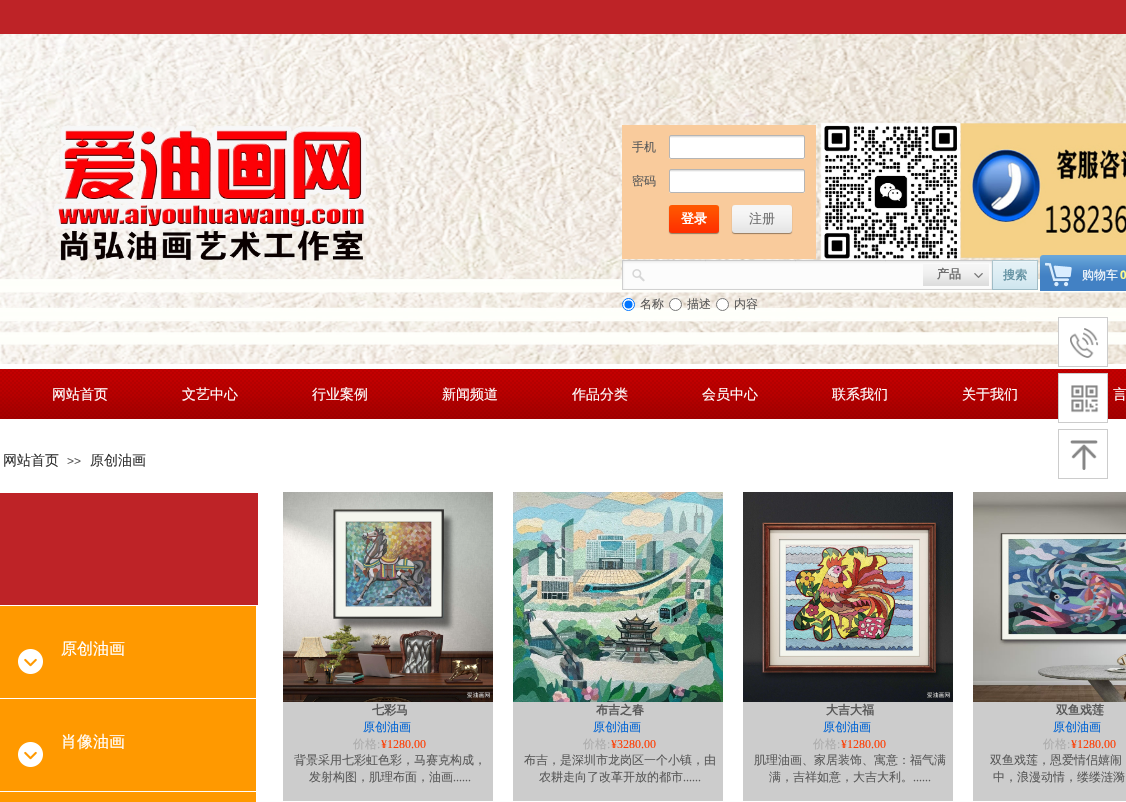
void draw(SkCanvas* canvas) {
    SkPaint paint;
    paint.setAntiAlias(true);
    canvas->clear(0xFFFFFFFF);
    paint.setColor(0xFFBE2327);
    canvas->drawRect(SkRect::MakeXYWH(0, 0, 1126, 34), paint);
    canvas->drawImageRect(SkImages::DeferredFromEncodedData(SkData::MakeFromFileName("img1.png")), SkRect::MakeXYWH(0, 34, 1126, 330), SkSamplingOptions());
    paint.setColor(0xFFF9CB9C);
    canvas->drawRect(SkRect::MakeXYWH(622, 125, 194, 134), paint);
    SkFont font1(fontMgr->matchFamilyStyle("WenQuanYi Zen Hei", SkFontStyle(500, SkFontStyle::kNormal_Width, SkFontStyle::kUpright_Slant)), 12);
    font1.setSubpixel(true);
    paint.setColor(0xFF5A5A5A);
    canvas->drawString("手机", 632, 151, font1, paint);
    canvas->drawImageRect(SkImages::DeferredFromEncodedData(SkData::MakeFromFileName("img2.png")), SkRect::MakeXYWH(669, 136, 136, 23), SkSamplingOptions());
    paint.setStyle(SkPaint::kStroke_Style);
    paint.setStrokeWidth(1);
    paint.setColor(0xFFB5B5B5);
    canvas->drawRoundRect(SkRect::MakeXYWH(669.5f, 135.5f, 135, 23), 1.5f, 1.5f, paint);
    paint.setStyle(SkPaint::kFill_Style);
    paint.setColor(0xFF5A5A5A);
    canvas->drawString("密码", 632, 185, font1, paint);
    canvas->drawImageRect(SkImages::DeferredFromEncodedData(SkData::MakeFromFileName("img2.png")), SkRect::MakeXYWH(669, 170, 136, 23), SkSamplingOptions());
    paint.setStyle(SkPaint::kStroke_Style);
    paint.setColor(0xFFB5B5B5);
    canvas->drawRoundRect(SkRect::MakeXYWH(669.5f, 169.5f, 135, 23), 1.5f, 1.5f, paint);
    paint.setStyle(SkPaint::kFill_Style);
    paint.setColor(0x66000000);
    paint.setMaskFilter(SkMaskFilter::MakeBlur(kNormal_SkBlurStyle, 0.5f));
    canvas->drawRoundRect(SkRect::MakeXYWH(669, 206, 50, 28), 3, 3, paint);
    paint.setMaskFilter(nullptr);
    canvas->drawImageRect(SkImages::DeferredFromEncodedData(SkData::MakeFromFileName("img3.png")), SkRect::MakeXYWH(669, 205, 50, 28), SkSamplingOptions());
    SkFont font2(fontMgr->matchFamilyStyle("WenQuanYi Zen Hei", SkFontStyle::Bold()), 13);
    font2.setSubpixel(true);
    paint.setColor(0xFFFFFFFF);
    canvas->drawString("登录", 681, 223, font2, paint);
    paint.setColor(0x66000000);
    paint.setMaskFilter(SkMaskFilter::MakeBlur(kNormal_SkBlurStyle, 0.5f));
    canvas->drawRoundRect(SkRect::MakeXYWH(732, 206, 60, 28), 3, 3, paint);
    paint.setMaskFilter(nullptr);
    canvas->drawImageRect(SkImages::DeferredFromEncodedData(SkData::MakeFromFileName("img4.png")), SkRect::MakeXYWH(732, 205, 60, 28), SkSamplingOptions());
    SkFont font3(fontMgr->matchFamilyStyle("WenQuanYi Zen Hei", SkFontStyle(500, SkFontStyle::kNormal_Width, SkFontStyle::kUpright_Slant)), 13);
    font3.setSubpixel(true);
    paint.setColor(0xFF6F6F6F);
    canvas->drawString("注册", 749, 223, font3, paint);
    canvas->drawImageRect(SkImages::DeferredFromEncodedData(SkData::MakeFromFileName("img5.png")), SkRect::MakeXYWH(622, 260, 25, 30), SkSamplingOptions());
    canvas->drawImageRect(SkImages::DeferredFromEncodedData(SkData::MakeFromFileName("img6.png")), SkRect::MakeXYWH(647, 260, 345, 30), SkSamplingOptions());
    canvas->drawImageRect(SkImages::DeferredFromEncodedData(SkData::MakeFromFileName("img7.png")), SkRect::MakeXYWH(923, 264, 2, 22), SkSamplingOptions());
    canvas->drawImageRect(SkImages::DeferredFromEncodedData(SkData::MakeFromFileName("img8.png")), SkRect::MakeXYWH(925, 264, 48, 22), SkSamplingOptions());
    SkFont font4(fontMgr->matchFamilyStyle("WenQuanYi Zen Hei", SkFontStyle::Bold()), 12);
    font4.setSubpixel(true);
    canvas->drawString("产品", 937, 278, font4, paint);
    canvas->drawImageRect(SkImages::DeferredFromEncodedData(SkData::MakeFromFileName("img9.png")), SkRect::MakeXYWH(973, 260, 19, 29), SkSamplingOptions());
    canvas->drawImageRect(SkImages::DeferredFromEncodedData(SkData::MakeFromFileName("img10.png")), SkRect::MakeXYWH(992, 260, 1, 30), SkSamplingOptions());
    canvas->drawImageRect(SkImages::DeferredFromEncodedData(SkData::MakeFromFileName("img11.png")), SkRect::MakeXYWH(993, 260, 44, 30), SkSamplingOptions());
    paint.setColor(0xFF6694A4);
    canvas->drawString("搜索", 1003, 279, font4, paint);
    canvas->drawImageRect(SkImages::DeferredFromEncodedData(SkData::MakeFromFileName("img10.png")), SkRect::MakeXYWH(1037, 260, 1, 30), SkSamplingOptions());
    paint.setColor(0xFFFFFFFF);
    canvas->drawCircle(628.5f, 304.5f, 6, paint);
    paint.setStyle(SkPaint::kStroke_Style);
    paint.setColor(0xFF0075FF);
    canvas->drawCircle(628.5f, 304.5f, 6, paint);
    paint.setStyle(SkPaint::kFill_Style);
    canvas->drawCircle(628.5f, 304.5f, 4, paint);
    paint.setColor(0xFF5A5A5A);
    canvas->drawString("名称", 640, 308, font1, paint);
    paint.setColor(0xFFFFFFFF);
    canvas->drawCircle(675.5f, 304.5f, 6, paint);
    paint.setStyle(SkPaint::kStroke_Style);
    paint.setColor(0xFF767676);
    canvas->drawCircle(675.5f, 304.5f, 6, paint);
    paint.setStyle(SkPaint::kFill_Style);
    paint.setColor(0xFF5A5A5A);
    canvas->drawString("描述", 687, 308, font1, paint);
    paint.setColor(0xFFFFFFFF);
    canvas->drawCircle(722.5f, 304.5f, 6, paint);
    paint.setStyle(SkPaint::kStroke_Style);
    paint.setColor(0xFF767676);
    canvas->drawCircle(722.5f, 304.5f, 6, paint);
    paint.setStyle(SkPaint::kFill_Style);
    paint.setColor(0xFF5A5A5A);
    canvas->drawString("内容", 734, 308, font1, paint);
    canvas->drawImageRect(SkImages::DeferredFromEncodedData(SkData::MakeFromFileName("img12.png")), SkRect::MakeXYWH(1040, 255, 86, 36), SkSamplingOptions());
    canvas->drawImageRect(SkImages::DeferredFromEncodedData(SkData::MakeFromFileName("img13.png")), SkRect::MakeXYWH(1045, 262, 27, 25), SkSamplingOptions());
    paint.setColor(0xFFFFFFFF);
    canvas->drawString("购物车", 1082, 279, font1, paint);
    SkFont font5(fontMgr->matchFamilyStyle("Liberation Sans", SkFontStyle::Bold()), 12);
    font5.setSubpixel(true);
    paint.setColor(0xFFFFFB8B);
    canvas->drawString("0", 1120, 279, font5, paint);
    canvas->drawImageRect(SkImages::DeferredFromEncodedData(SkData::MakeFromFileName("img14.png")), SkRect::MakeXYWH(0, 369, 1126, 50), SkSamplingOptions());
    SkFont font6(fontMgr->matchFamilyStyle("WenQuanYi Zen Hei", SkFontStyle(500, SkFontStyle::kNormal_Width, SkFontStyle::kUpright_Slant)), 14);
    font6.setSubpixel(true);
    paint.setColor(0xFFFFFFFF);
    canvas->drawString("网站首页", 52, 399, font6, paint);
    canvas->drawString("文艺中心", 182, 399, font6, paint);
    canvas->drawString("行业案例", 312, 399, font6, paint);
    canvas->drawString("新闻频道", 442, 399, font6, paint);
    canvas->drawString("作品分类", 572, 399, font6, paint);
    canvas->drawString("会员中心", 702, 399, font6, paint);
    canvas->drawString("联系我们", 832, 399, font6, paint);
    canvas->drawString("关于我们", 962, 399, font6, paint);
    canvas->drawString("言", 1113, 399, font6, paint);
    paint.setColor(0xFF333333);
    canvas->drawString("网站首页", 3, 465, font6, paint);
    SkFont font7(fontMgr->matchFamilyStyle("Liberation Sans", SkFontStyle::Normal()), 12);
    font7.setSubpixel(true);
    paint.setColor(0xFF5A5A5A);
    canvas->drawString(">>", 67, 465, font7, paint);
    paint.setColor(0xFF333333);
    canvas->drawString("原创油画", 90, 465, font6, paint);
    paint.setColor(0xFFBE2327);
    canvas->drawRect(SkRect::MakeXYWH(0, 493, 258, 112), paint);
    paint.setColor(0xFFFF9900);
    canvas->drawRect(SkRect::MakeXYWH(0, 606, 256, 92), paint);
    canvas->drawImageRect(SkImages::DeferredFromEncodedData(SkData::MakeFromFileName("img15.png")), SkRect::MakeXYWH(18, 649, 25, 25), SkSamplingOptions());
    SkFont font8(fontMgr->matchFamilyStyle("WenQuanYi Zen Hei", SkFontStyle(500, SkFontStyle::kNormal_Width, SkFontStyle::kUpright_Slant)), 16);
    font8.setSubpixel(true);
    paint.setColor(0xFFFFFFFF);
    canvas->drawString("原创油画", 61, 654, font8, paint);
    paint.setColor(0xFFFF9900);
    canvas->drawRect(SkRect::MakeXYWH(0, 699, 256, 92), paint);
    canvas->drawImageRect(SkImages::DeferredFromEncodedData(SkData::MakeFromFileName("img15.png")), SkRect::MakeXYWH(18, 742, 25, 25), SkSamplingOptions());
    paint.setColor(0xFFFFFFFF);
    canvas->drawString("肖像油画", 61, 747, font8, paint);
    paint.setColor(0xFFFF9900);
    canvas->drawRect(SkRect::MakeXYWH(0, 792, 256, 10), paint);
    paint.setColor(0xFFCCCCCC);
    canvas->drawRect(SkRect::MakeXYWH(283, 702, 210, 99), paint);
    canvas->drawImageRect(SkImages::DeferredFromEncodedData(SkData::MakeFromFileName("img16.png")), SkRect::MakeXYWH(283, 492, 210, 210), SkSamplingOptions());
    paint.setColor(0xFF5A5A5A);
    canvas->drawString("七彩马", 372, 714, font4, paint);
    paint.setColor(0xFF0064D4);
    canvas->drawString("原创油画", 363, 731, font1, paint);
    paint.setColor(0xFFACACAC);
    canvas->drawString("价格", 353, 748, font1, paint);
    SkFont font9(fontMgr->matchFamilyStyle("Liberation Serif", SkFontStyle::Normal()), 12);
    font9.setSubpixel(true);
    canvas->drawString(":", 377, 748, font9, paint);
    paint.setColor(0xFFFF3C00);
    canvas->drawString("¥1280.00", 381, 748, font9, paint);
    paint.setColor(0xFF5A5A5A);
    canvas->drawString("背景采用七彩虹色彩，马赛克构成，", 294, 764, font1, paint);
    canvas->drawString("发射构图，肌理布面，油画", 309, 781, font1, paint);
    canvas->drawString("......", 453, 781, font9, paint);
    paint.setColor(0xFFCCCCCC);
    canvas->drawRect(SkRect::MakeXYWH(513, 702, 210, 99), paint);
    canvas->drawImageRect(SkImages::DeferredFromEncodedData(SkData::MakeFromFileName("img17.png")), SkRect::MakeXYWH(513, 492, 210, 210), SkSamplingOptions());
    paint.setColor(0xFF5A5A5A);
    canvas->drawString("布吉之春", 596, 714, font4, paint);
    paint.setColor(0xFF0064D4);
    canvas->drawString("原创油画", 593, 731, font1, paint);
    paint.setColor(0xFFACACAC);
    canvas->drawString("价格", 583, 748, font1, paint);
    canvas->drawString(":", 607, 748, font9, paint);
    paint.setColor(0xFFFF3C00);
    canvas->drawString("¥3280.00", 611, 748, font9, paint);
    paint.setColor(0xFF5A5A5A);
    canvas->drawString("布吉，是深圳市龙岗区一个小镇，由", 524, 764, font1, paint);
    canvas->drawString("农耕走向了改革开放的都市", 539, 781, font1, paint);
    canvas->drawString("......", 683, 781, font9, paint);
    paint.setColor(0xFFCCCCCC);
    canvas->drawRect(SkRect::MakeXYWH(743, 702, 210, 99), paint);
    canvas->drawImageRect(SkImages::DeferredFromEncodedData(SkData::MakeFromFileName("img18.png")), SkRect::MakeXYWH(743, 492, 210, 210), SkSamplingOptions());
    paint.setColor(0xFF5A5A5A);
    canvas->drawString("大吉大福", 826, 714, font4, paint);
    paint.setColor(0xFF0064D4);
    canvas->drawString("原创油画", 823, 731, font1, paint);
    paint.setColor(0xFFACACAC);
    canvas->drawString("价格", 813, 748, font1, paint);
    canvas->drawString(":", 837, 748, font9, paint);
    paint.setColor(0xFFFF3C00);
    canvas->drawString("¥1280.00", 841, 748, font9, paint);
    paint.setColor(0xFF5A5A5A);
    canvas->drawString("肌理油画、家居装饰、寓意：福气满", 754, 764, font1, paint);
    canvas->drawString("满，吉祥如意，大吉大利。", 769, 781, font1, paint);
    canvas->drawString("......", 913, 781, font9, paint);
    paint.setColor(0xFFCCCCCC);
    canvas->drawRect(SkRect::MakeXYWH(973, 702, 153, 99), paint);
    canvas->drawImageRect(SkImages::DeferredFromEncodedData(SkData::MakeFromFileName("img19.png")), SkRect::MakeXYWH(973, 492, 153, 210), SkSamplingOptions());
    paint.setColor(0xFF5A5A5A);
    canvas->drawString("双鱼戏莲", 1056, 714, font4, paint);
    paint.setColor(0xFF0064D4);
    canvas->drawString("原创油画", 1053, 731, font1, paint);
    paint.setColor(0xFFACACAC);
    canvas->drawString("价格", 1043, 748, font1, paint);
    canvas->drawString(":", 1067, 748, font9, paint);
    paint.setColor(0xFFFF3C00);
    canvas->drawString("¥1280.00", 1071, 748, font9, paint);
    paint.setColor(0xFF5A5A5A);
    canvas->drawString("双鱼戏莲，恩爱情侣嬉闹", 990, 764, font1, paint);
    canvas->drawString("中，浪漫动情，缕缕涟漪", 993, 781, font1, paint);
    paint.setColor(0xFFFFFFFF);
    canvas->drawRect(SkRect::MakeXYWH(1059, 318, 48, 46), paint);
    paint.setStyle(SkPaint::kStroke_Style);
    paint.setColor(0xFFCCCCCC);
    canvas->drawRect(SkRect::MakeXYWH(1058.5f, 317.5f, 49, 49), paint);
    canvas->drawImageRect(SkImages::DeferredFromEncodedData(SkData::MakeFromFileName("img20.png")), SkRect::MakeXYWH(1070, 328, 29, 30), SkSamplingOptions());
    paint.setStyle(SkPaint::kFill_Style);
    paint.setColor(0xFFFFFFFF);
    canvas->drawRect(SkRect::MakeXYWH(1059, 374, 48, 45), paint);
    paint.setStyle(SkPaint::kStroke_Style);
    paint.setColor(0xFFCCCCCC);
    canvas->drawRect(SkRect::MakeXYWH(1058.5f, 373.5f, 49, 49), paint);
    canvas->drawImageRect(SkImages::DeferredFromEncodedData(SkData::MakeFromFileName("img21.png")), SkRect::MakeXYWH(1071, 385, 28, 28), SkSamplingOptions());
    canvas->drawRect(SkRect::MakeXYWH(1058.5f, 429.5f, 49, 49), paint);
    canvas->drawImageRect(SkImages::DeferredFromEncodedData(SkData::MakeFromFileName("img22.png")), SkRect::MakeXYWH(1070, 440, 28, 30), SkSamplingOptions());
}
